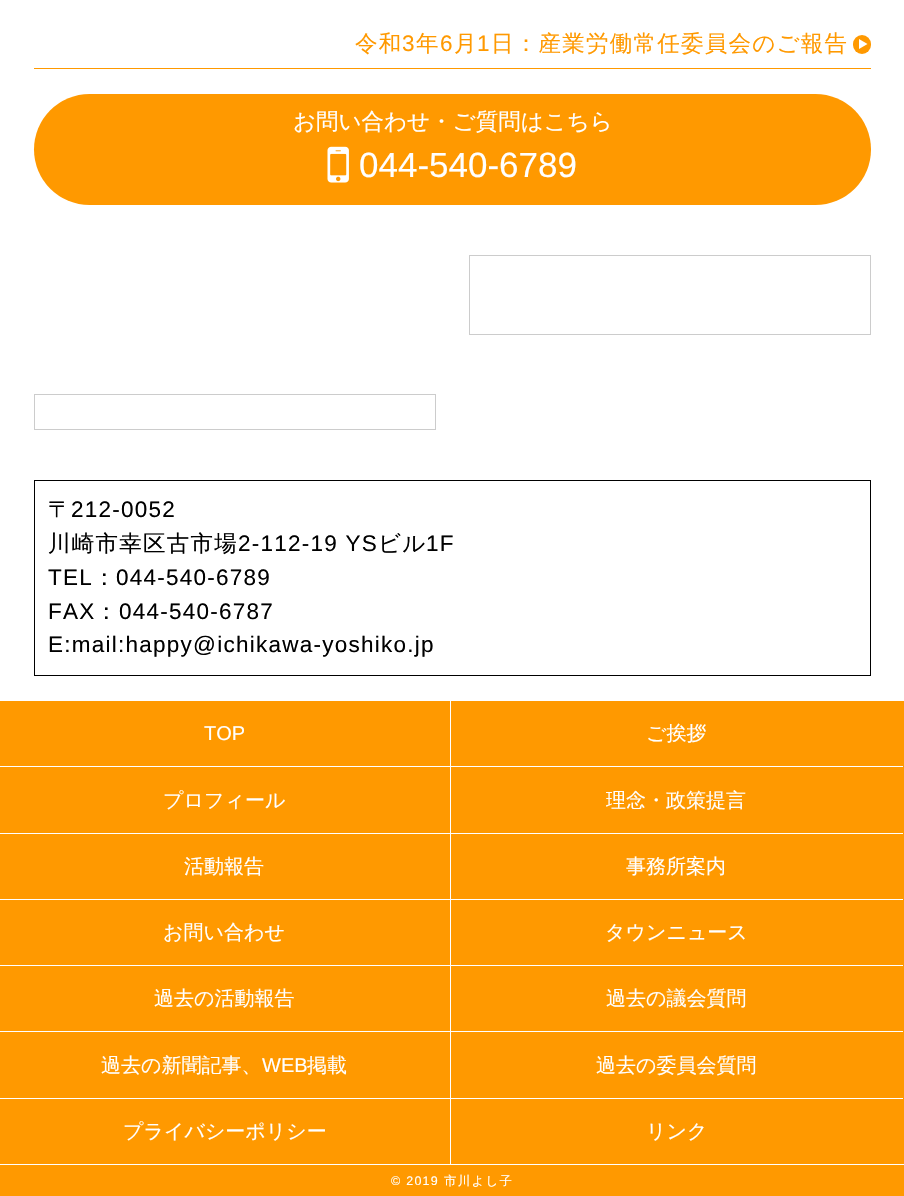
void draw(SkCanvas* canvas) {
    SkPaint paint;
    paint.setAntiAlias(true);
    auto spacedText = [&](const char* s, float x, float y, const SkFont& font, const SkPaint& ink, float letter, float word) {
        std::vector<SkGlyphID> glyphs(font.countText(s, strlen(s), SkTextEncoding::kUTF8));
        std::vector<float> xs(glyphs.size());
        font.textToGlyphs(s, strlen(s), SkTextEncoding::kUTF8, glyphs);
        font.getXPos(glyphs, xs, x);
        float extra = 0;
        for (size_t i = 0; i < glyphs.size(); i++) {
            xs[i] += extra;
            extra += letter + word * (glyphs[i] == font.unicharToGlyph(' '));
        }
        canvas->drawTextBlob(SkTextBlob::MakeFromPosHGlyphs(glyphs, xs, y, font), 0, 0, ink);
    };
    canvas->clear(0xFFFFFFFF);
    paint.setColor(0xFFFF9900);
    canvas->drawRect(SkRect::MakeXYWH(34, 68, 837, 1), paint);
    SkFont font1(fontMgr->matchFamilyStyle("WenQuanYi Zen Hei", SkFontStyle(500, SkFontStyle::kNormal_Width, SkFontStyle::kUpright_Slant)), 22.5f);
    font1.setSubpixel(true);
    spacedText("令和", 355, 51, font1, paint, 1.25f, 0);
    SkFont font2(fontMgr->matchFamilyStyle("Liberation Sans", SkFontStyle::Normal()), 22.5f);
    font2.setSubpixel(true);
    spacedText("3", 402, 51, font2, paint, 1.25f, 0);
    spacedText("年", 416, 51, font1, paint, 1.25f, 0);
    spacedText("6", 440, 51, font2, paint, 1.25f, 0);
    spacedText("月", 454, 51, font1, paint, 1.25f, 0);
    spacedText("1", 477, 51, font2, paint, 1.25f, 0);
    spacedText("日：産業労働常任委員会のご報告", 491, 51, font1, paint, 1.25f, 0);
    canvas->drawRoundRect(SkRect::MakeXYWH(853, 35, 18, 19), 9, 9, paint);
    paint.setColor(0xFFFFFFFF);
    canvas->drawPath(SkPathBuilder().moveTo(859, 49).lineTo(859, 39).lineTo(867.5f, 44).close().detach(), paint);
    paint.setColor(0xFFFF9900);
    canvas->drawRoundRect(SkRect::MakeXYWH(34, 94, 837, 111), 55.5f, 55.5f, paint);
    paint.setColor(0xFFFFFFFF);
    canvas->drawString("お問い合わせ・ご質問はこちら", 293, 129, font1, paint);
    canvas->drawImageRect(SkImages::DeferredFromEncodedData(SkData::MakeFromFileName("img1.png")), SkRect::MakeXYWH(327, 146, 22, 37), SkSamplingOptions());
    SkFont font3(fontMgr->matchFamilyStyle("Liberation Sans", SkFontStyle::Normal()), 35);
    font3.setSubpixel(true);
    canvas->drawString("044-540-6789", 359, 177, font3, paint);
    paint.setStyle(SkPaint::kStroke_Style);
    paint.setStrokeWidth(1);
    paint.setColor(0xFFCCCCCC);
    canvas->drawRect(SkRect::MakeXYWH(469.5f, 255.5f, 401, 79), paint);
    canvas->drawRect(SkRect::MakeXYWH(34.5f, 394.5f, 401, 35), paint);
    paint.setColor(0xFF000000);
    canvas->drawRect(SkRect::MakeXYWH(34.5f, 480.5f, 836, 195), paint);
    paint.setStyle(SkPaint::kFill_Style);
    spacedText("〒", 48, 517, font1, paint, 1.25f, 0);
    spacedText("212-0052", 71, 517, font2, paint, 1.25f, 0);
    spacedText("川崎市幸区古市場", 48, 551, font1, paint, 1.25f, 0);
    spacedText("2-112-19 YS", 238, 551, font2, paint, 1.25f, 0);
    spacedText("ビル", 378, 551, font1, paint, 1.25f, 0);
    spacedText("1F", 426, 551, font2, paint, 1.25f, 0);
    spacedText("TEL", 48, 585, font2, paint, 1.25f, 0);
    spacedText("：", 93, 585, font1, paint, 1.25f, 0);
    spacedText("044-540-6789", 116, 585, font2, paint, 1.25f, 0);
    spacedText("FAX", 48, 619, font2, paint, 1.25f, 0);
    spacedText("：", 95, 619, font1, paint, 1.25f, 0);
    spacedText("044-540-6787", 119, 619, font2, paint, 1.25f, 0);
    spacedText("E:mail:happy@ichikawa-yoshiko.jp", 48, 652, font2, paint, 1.25f, 0);
    paint.setColor(0xFFFF9900);
    canvas->drawRect(SkRect::MakeXYWH(0, 701, 904, 463), paint);
    paint.setColor(0xFFFFFFFF);
    canvas->drawRect(SkRect::MakeXYWH(450, 701, 1, 464), paint);
    canvas->drawRect(SkRect::MakeXYWH(0, 766, 903, 1), paint);
    SkFont font4(fontMgr->matchFamilyStyle("Liberation Sans", SkFontStyle::Normal()), 20);
    font4.setSubpixel(true);
    canvas->drawString("TOP", 204, 740, font4, paint);
    SkFont font5(fontMgr->matchFamilyStyle("WenQuanYi Zen Hei", SkFontStyle(500, SkFontStyle::kNormal_Width, SkFontStyle::kUpright_Slant)), 20);
    font5.setSubpixel(true);
    canvas->drawString("ご挨拶", 646, 740, font5, paint);
    canvas->drawRect(SkRect::MakeXYWH(0, 833, 903, 1), paint);
    canvas->drawString("プロフィール", 163, 807, font5, paint);
    canvas->drawString("理念・政策提言", 606, 807, font5, paint);
    canvas->drawRect(SkRect::MakeXYWH(0, 899, 903, 1), paint);
    canvas->drawString("活動報告", 184, 873, font5, paint);
    canvas->drawString("事務所案内", 626, 873, font5, paint);
    canvas->drawRect(SkRect::MakeXYWH(0, 965, 903, 1), paint);
    canvas->drawString("お問い合わせ", 163, 939, font5, paint);
    canvas->drawString("タウンニュース", 605, 939, font5, paint);
    canvas->drawRect(SkRect::MakeXYWH(0, 1031, 903, 1), paint);
    canvas->drawString("過去の活動報告", 154, 1005, font5, paint);
    canvas->drawString("過去の議会質問", 606, 1005, font5, paint);
    canvas->drawRect(SkRect::MakeXYWH(0, 1098, 903, 1), paint);
    canvas->drawString("過去の新聞記事、", 101, 1072, font5, paint);
    canvas->drawString("WEB", 262, 1072, font4, paint);
    canvas->drawString("掲載", 307, 1072, font5, paint);
    canvas->drawString("過去の委員会質問", 596, 1072, font5, paint);
    canvas->drawString("プライバシーポリシー", 123, 1138, font5, paint);
    canvas->drawString("リンク", 646, 1138, font5, paint);
    paint.setColor(0xFFFF9900);
    canvas->drawRect(SkRect::MakeXYWH(0, 1165, 904, 31), paint);
    SkFont font6(fontMgr->matchFamilyStyle("Liberation Sans", SkFontStyle::Normal()), 12.5f);
    font6.setSubpixel(true);
    paint.setColor(0xFFFFFFFF);
    spacedText("© 2019", 391, 1185, font6, paint, 1.25f, 0);
    SkFont font7(fontMgr->matchFamilyStyle("WenQuanYi Zen Hei", SkFontStyle(500, SkFontStyle::kNormal_Width, SkFontStyle::kUpright_Slant)), 12.5f);
    font7.setSubpixel(true);
    spacedText("市川よし子", 444, 1185, font7, paint, 1.25f, 0);
}
